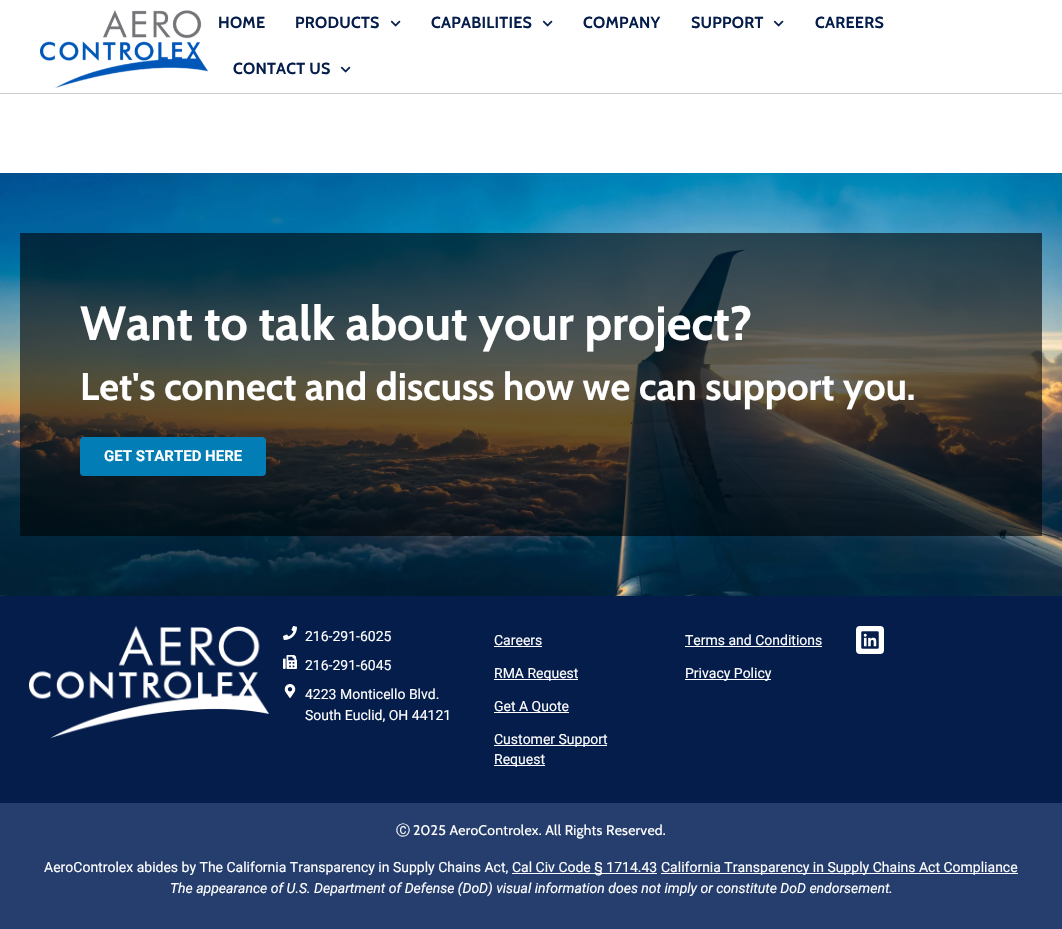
void draw(SkCanvas* canvas) {
    SkPaint paint;
    paint.setAntiAlias(true);
    auto spacedText = [&](const char* s, float x, float y, const SkFont& font, const SkPaint& ink, float letter, float word) {
        std::vector<SkGlyphID> glyphs(font.countText(s, strlen(s), SkTextEncoding::kUTF8));
        std::vector<float> xs(glyphs.size());
        font.textToGlyphs(s, strlen(s), SkTextEncoding::kUTF8, glyphs);
        font.getXPos(glyphs, xs, x);
        float extra = 0;
        for (size_t i = 0; i < glyphs.size(); i++) {
            xs[i] += extra;
            extra += letter + word * (glyphs[i] == font.unicharToGlyph(' '));
        }
        canvas->drawTextBlob(SkTextBlob::MakeFromPosHGlyphs(glyphs, xs, y, font), 0, 0, ink);
    };
    canvas->clear(0xFFFFFFFF);
    paint.setColor(0xFFCCCCCC);
    canvas->drawRect(SkRect::MakeXYWH(0, 93, 1062, 1), paint);
    canvas->drawImageRect(SkImages::DeferredFromEncodedData(SkData::MakeFromFileName("img1.png")), SkRect::MakeXYWH(40, 10, 168, 78), SkSamplingOptions());
    SkFont font1(fontMgr->matchFamilyStyle("Cabin", SkFontStyle::Bold()), 16);
    font1.setSubpixel(true);
    paint.setColor(0xFF051D4B);
    spacedText("HOME", 218, 28, font1, paint, 0.25f, 0);
    spacedText("PRODUCTS", 295, 28, font1, paint, 0.25f, 0);
    canvas->drawImageRect(SkImages::DeferredFromEncodedData(SkData::MakeFromFileName("img2.png")), SkRect::MakeXYWH(390, 20, 11, 7), SkSamplingOptions());
    spacedText("CAPABILITIES", 431, 28, font1, paint, 0.25f, 0);
    canvas->drawImageRect(SkImages::DeferredFromEncodedData(SkData::MakeFromFileName("img2.png")), SkRect::MakeXYWH(542, 20, 11, 7), SkSamplingOptions());
    spacedText("COMPANY", 583, 28, font1, paint, 0.25f, 0);
    spacedText("SUPPORT", 691, 28, font1, paint, 0.25f, 0);
    canvas->drawImageRect(SkImages::DeferredFromEncodedData(SkData::MakeFromFileName("img2.png")), SkRect::MakeXYWH(773, 20, 11, 7), SkSamplingOptions());
    spacedText("CAREERS", 815, 28, font1, paint, 0.25f, 0);
    spacedText("CONTACT US", 233, 74, font1, paint, 0.25f, 0);
    canvas->drawImageRect(SkImages::DeferredFromEncodedData(SkData::MakeFromFileName("img2.png")), SkRect::MakeXYWH(340, 66, 11, 7), SkSamplingOptions());
    canvas->drawImageRect(SkImages::DeferredFromEncodedData(SkData::MakeFromFileName("img3.png")), SkRect::MakeXYWH(0, 173, 1062, 423), SkSamplingOptions());
    paint.setColor(0x99000000);
    canvas->drawRect(SkRect::MakeXYWH(20, 233, 1022, 303), paint);
    SkFont font2(fontMgr->matchFamilyStyle("Cabin", SkFontStyle::Bold()), 48);
    font2.setSubpixel(true);
    paint.setColor(0xFFFFFFFF);
    canvas->drawString("Want to talk about your project?", 80, 340, font2, paint);
    SkFont font3(fontMgr->matchFamilyStyle("Cabin", SkFontStyle::Bold()), 38.4f);
    font3.setSubpixel(true);
    canvas->drawString("Let's connect and discuss how we can support you.", 80, 400, font3, paint);
    paint.setColor(0xFF027DB6);
    canvas->drawRoundRect(SkRect::MakeXYWH(80, 437, 186, 39), 4, 4, paint);
    SkFont font4(fontMgr->matchFamilyStyle("Roboto", SkFontStyle::Bold()), 15);
    font4.setSubpixel(true);
    paint.setColor(0xFFFFFFFF);
    canvas->drawString("GET STARTED HERE", 104, 461, font4, paint);
    paint.setColor(0xFF051D4B);
    canvas->drawRect(SkRect::MakeXYWH(0, 596, 1062, 207), paint);
    canvas->drawImageRect(SkImages::DeferredFromEncodedData(SkData::MakeFromFileName("img4.png")), SkRect::MakeXYWH(29, 626, 240, 112), SkSamplingOptions());
    canvas->drawImageRect(SkImages::DeferredFromEncodedData(SkData::MakeFromFileName("img5.png")), SkRect::MakeXYWH(283, 626, 14, 14), SkSamplingOptions());
    SkFont font5(fontMgr->matchFamilyStyle("Roboto", SkFontStyle::Normal()), 14);
    font5.setSubpixel(true);
    paint.setColor(0xFFFFFFFF);
    canvas->drawString("216-291-6025", 305, 641, font5, paint);
    canvas->drawImageRect(SkImages::DeferredFromEncodedData(SkData::MakeFromFileName("img6.png")), SkRect::MakeXYWH(283, 655, 14, 14), SkSamplingOptions());
    canvas->drawString("216-291-6045", 305, 670, font5, paint);
    canvas->drawImageRect(SkImages::DeferredFromEncodedData(SkData::MakeFromFileName("img7.png")), SkRect::MakeXYWH(284, 684, 12, 14), SkSamplingOptions());
    canvas->drawString("4223 Monticello Blvd.", 305, 699, font5, paint);
    canvas->drawString("South Euclid, OH 44121", 305, 720, font5, paint);
    canvas->drawString("Careers", 494, 645, font5, paint);
    canvas->drawRect(SkRect::MakeXYWH(494, 646, 48, 1), paint);
    canvas->drawRect(SkRect::MakeXYWH(494, 679, 84, 1), paint);
    canvas->drawString("RMA Request", 494, 678, font5, paint);
    canvas->drawRect(SkRect::MakeXYWH(494, 712, 75, 1), paint);
    canvas->drawString("Get A Quote", 494, 711, font5, paint);
    canvas->drawRect(SkRect::MakeXYWH(494, 745, 113, 1), paint);
    canvas->drawString("Customer Support", 494, 744, font5, paint);
    canvas->drawRect(SkRect::MakeXYWH(494, 765, 51, 1), paint);
    canvas->drawString("Request", 494, 764, font5, paint);
    canvas->drawString("Terms and Conditions", 685, 645, font5, paint);
    canvas->drawRect(SkRect::MakeXYWH(685, 646, 137, 1), paint);
    canvas->drawRect(SkRect::MakeXYWH(685, 679, 86, 1), paint);
    canvas->drawString("Privacy Policy", 685, 678, font5, paint);
    canvas->drawRoundRect(SkRect::MakeXYWH(856, 626, 28, 28), 4, 4, paint);
    canvas->drawImageRect(SkImages::DeferredFromEncodedData(SkData::MakeFromFileName("img8.png")), SkRect::MakeXYWH(861, 631, 18, 18), SkSamplingOptions());
    paint.setColor(0xFF253E6D);
    canvas->drawRect(SkRect::MakeXYWH(0, 803, 1062, 126), paint);
    SkFont font6(fontMgr->matchFamilyStyle("WenQuanYi Zen Hei", SkFontStyle(500, SkFontStyle::kNormal_Width, SkFontStyle::kUpright_Slant)), 14);
    font6.setSubpixel(true);
    paint.setColor(0xFFFFFFFF);
    spacedText("Ⓒ", 396, 835, font6, paint, 0.25f, 0);
    SkFont font7(fontMgr->matchFamilyStyle("Cabin", SkFontStyle::Normal()), 14);
    font7.setSubpixel(true);
    spacedText("2025 AeroControlex. All Rights Reserved.", 413, 835, font7, paint, 0.25f, 0);
    canvas->drawString("AeroControlex abides by The California Transparency in Supply Chains Act,", 44, 872, font5, paint);
    canvas->drawRect(SkRect::MakeXYWH(512, 873, 145, 1), paint);
    canvas->drawString("Cal Civ Code § 1714.43", 512, 872, font5, paint);
    canvas->drawRect(SkRect::MakeXYWH(661, 873, 357, 1), paint);
    canvas->drawString("California Transparency in Supply Chains Act Compliance", 661, 872, font5, paint);
    SkFont font8(fontMgr->matchFamilyStyle("Roboto", SkFontStyle::Italic()), 14);
    font8.setSubpixel(true);
    canvas->drawString("The appearance of U.S. Department of Defense (DoD) visual information does not imply or constitute DoD endorsement.", 170, 893, font8, paint);
}
